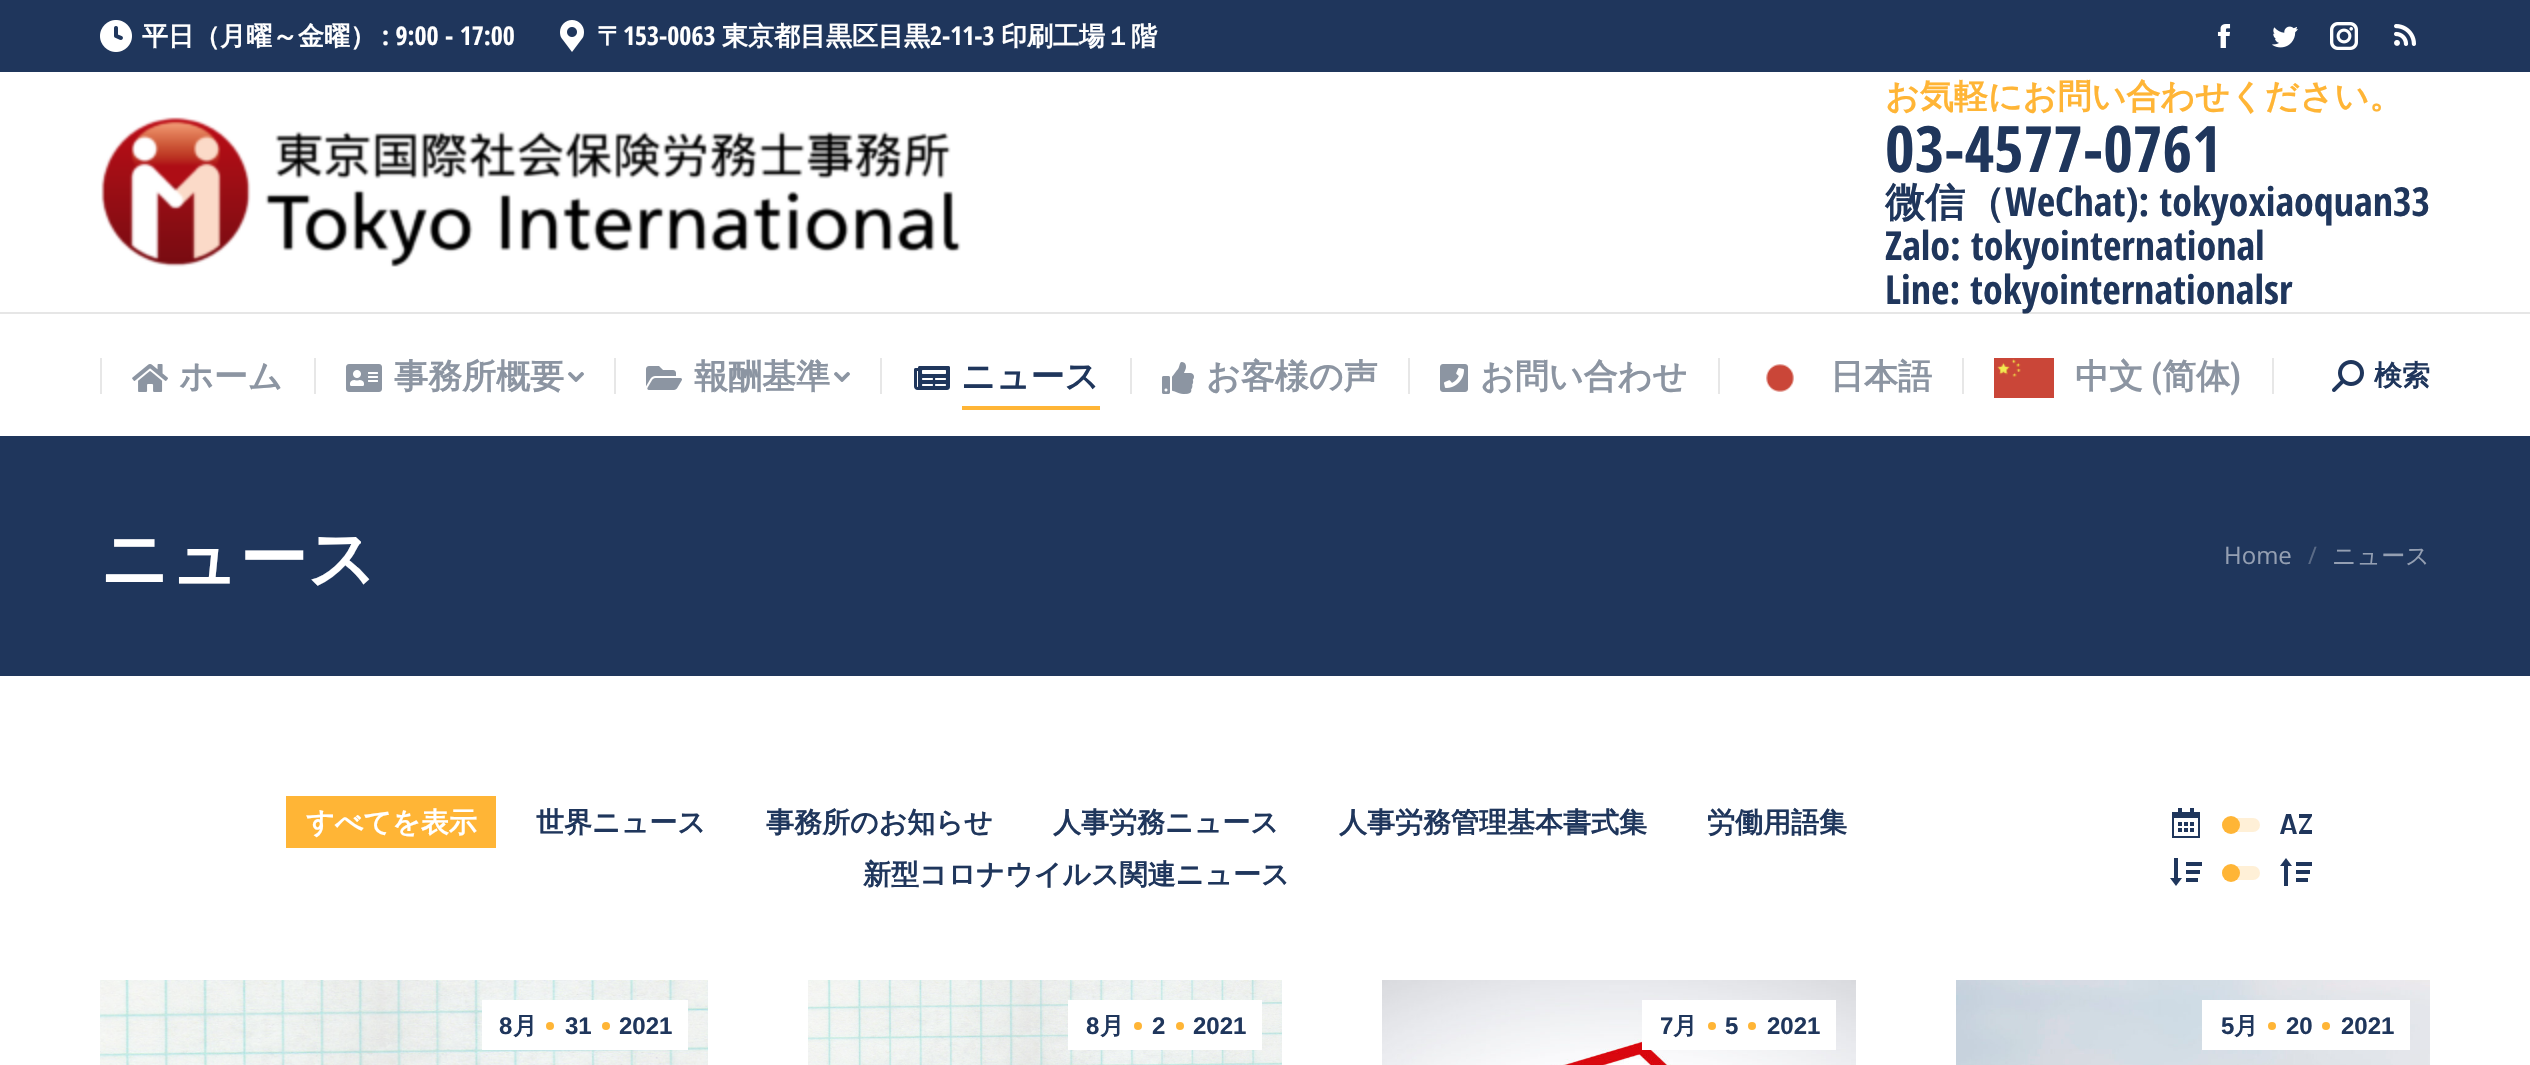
void draw(SkCanvas* canvas) {
    SkPaint paint;
    paint.setAntiAlias(true);
    canvas->clear(0xFFFFFFFF);
    paint.setColor(0xFF1F365C);
    canvas->drawRect(SkRect::MakeXYWH(0, 0, 2530, 72), paint);
    canvas->drawImageRect(SkImages::DeferredFromEncodedData(SkData::MakeFromFileName("img1.png")), SkRect::MakeXYWH(100, 20, 32, 32), SkSamplingOptions());
    SkFont font1(fontMgr->matchFamilyStyle("WenQuanYi Zen Hei", SkFontStyle::Bold()), 26);
    font1.setSubpixel(true);
    paint.setColor(0xFFFFFFFF);
    canvas->drawString("平日（月曜～金曜）", 142, 45, font1, paint);
    SkFont font2(fontMgr->matchFamilyStyle("Open Sans Condensed", SkFontStyle::Bold()), 26);
    font2.setSubpixel(true);
    canvas->drawString(": 9:00 - 17:00", 382, 45, font2, paint);
    canvas->drawImageRect(SkImages::DeferredFromEncodedData(SkData::MakeFromFileName("img2.png")), SkRect::MakeXYWH(560, 20, 24, 32), SkSamplingOptions());
    canvas->drawString("〒", 597, 45, font1, paint);
    canvas->drawString("153-0063", 623, 45, font2, paint);
    canvas->drawString("東京都目黒区目黒", 722, 45, font1, paint);
    canvas->drawString("2-11-3", 930, 45, font2, paint);
    canvas->drawString("印刷工場１階", 1001, 45, font1, paint);
    canvas->drawImageRect(SkImages::DeferredFromEncodedData(SkData::MakeFromFileName("img3.png")), SkRect::MakeXYWH(2217, 24, 14, 24), SkSamplingOptions());
    canvas->drawImageRect(SkImages::DeferredFromEncodedData(SkData::MakeFromFileName("img4.png")), SkRect::MakeXYWH(2272, 26, 26, 22), SkSamplingOptions());
    canvas->drawImageRect(SkImages::DeferredFromEncodedData(SkData::MakeFromFileName("img5.png")), SkRect::MakeXYWH(2330, 22, 28, 28), SkSamplingOptions());
    canvas->drawImageRect(SkImages::DeferredFromEncodedData(SkData::MakeFromFileName("img6.png")), SkRect::MakeXYWH(2394, 24, 22, 22), SkSamplingOptions());
    canvas->drawImageRect(SkImages::DeferredFromEncodedData(SkData::MakeFromFileName("img7.png")), SkRect::MakeXYWH(101, 117, 860, 150), SkSamplingOptions());
    SkFont font3(fontMgr->matchFamilyStyle("WenQuanYi Zen Hei", SkFontStyle::Bold()), 34);
    font3.setSubpixel(true);
    paint.setColor(0xFFFFB536);
    canvas->drawString("お気軽にお問い合わせください。", 1885, 108, font3, paint);
    SkFont font4(fontMgr->matchFamilyStyle("Open Sans Condensed", SkFontStyle::Bold()), 64);
    font4.setSubpixel(true);
    paint.setColor(0xFF1F365C);
    canvas->drawString("03-4577-0761", 1885, 172, font4, paint);
    SkFont font5(fontMgr->matchFamilyStyle("WenQuanYi Zen Hei", SkFontStyle::Bold()), 40);
    font5.setSubpixel(true);
    canvas->drawString("微信（", 1885, 216, font5, paint);
    SkFont font6(fontMgr->matchFamilyStyle("Open Sans Condensed", SkFontStyle::Bold()), 40);
    font6.setSubpixel(true);
    canvas->drawString("WeChat): tokyoxiaoquan33", 2005, 216, font6, paint);
    canvas->drawString("Zalo: tokyointernational", 1885, 260, font6, paint);
    canvas->drawString("Line: tokyointernationalsr", 1885, 304, font6, paint);
    paint.setColor(0x1F333333);
    canvas->drawRect(SkRect::MakeXYWH(0, 312, 2530, 2), paint);
    paint.setColor(0xFFE7E7E7);
    canvas->drawRect(SkRect::MakeXYWH(100, 358, 2, 36), paint);
    canvas->drawImageRect(SkImages::DeferredFromEncodedData(SkData::MakeFromFileName("img8.png")), SkRect::MakeXYWH(132, 364, 36, 28), SkSamplingOptions());
    paint.setColor(0xFF8C95A2);
    canvas->drawString("ホーム", 179, 388, font3, paint);
    paint.setColor(0xFFE7E7E7);
    canvas->drawRect(SkRect::MakeXYWH(314, 358, 2, 36), paint);
    canvas->drawImageRect(SkImages::DeferredFromEncodedData(SkData::MakeFromFileName("img9.png")), SkRect::MakeXYWH(346, 364, 36, 28), SkSamplingOptions());
    paint.setColor(0xFF8C95A2);
    canvas->drawString("事務所概要", 394, 388, font3, paint);
    canvas->drawImageRect(SkImages::DeferredFromEncodedData(SkData::MakeFromFileName("img10.png")), SkRect::MakeXYWH(568, 372, 16, 10), SkSamplingOptions());
    paint.setColor(0xFFE7E7E7);
    canvas->drawRect(SkRect::MakeXYWH(614, 358, 2, 36), paint);
    canvas->drawImageRect(SkImages::DeferredFromEncodedData(SkData::MakeFromFileName("img11.png")), SkRect::MakeXYWH(646, 366, 36, 24), SkSamplingOptions());
    paint.setColor(0xFF8C95A2);
    canvas->drawString("報酬基準", 694, 388, font3, paint);
    canvas->drawImageRect(SkImages::DeferredFromEncodedData(SkData::MakeFromFileName("img10.png")), SkRect::MakeXYWH(834, 372, 16, 10), SkSamplingOptions());
    paint.setColor(0xFFE7E7E7);
    canvas->drawRect(SkRect::MakeXYWH(880, 358, 2, 36), paint);
    canvas->drawImageRect(SkImages::DeferredFromEncodedData(SkData::MakeFromFileName("img12.png")), SkRect::MakeXYWH(914, 366, 36, 24), SkSamplingOptions());
    paint.setColor(0xFF1F365C);
    canvas->drawString("ニュース", 961, 388, font3, paint);
    paint.setColor(0xFFFFB536);
    canvas->drawRect(SkRect::MakeXYWH(962, 406, 138, 4), paint);
    paint.setColor(0xFFE7E7E7);
    canvas->drawRect(SkRect::MakeXYWH(1130, 358, 2, 36), paint);
    canvas->drawImageRect(SkImages::DeferredFromEncodedData(SkData::MakeFromFileName("img13.png")), SkRect::MakeXYWH(1162, 362, 32, 32), SkSamplingOptions());
    paint.setColor(0xFF8C95A2);
    canvas->drawString("お客様の声", 1206, 388, font3, paint);
    paint.setColor(0xFFE7E7E7);
    canvas->drawRect(SkRect::MakeXYWH(1408, 358, 2, 36), paint);
    canvas->drawImageRect(SkImages::DeferredFromEncodedData(SkData::MakeFromFileName("img14.png")), SkRect::MakeXYWH(1440, 364, 28, 28), SkSamplingOptions());
    paint.setColor(0xFF8C95A2);
    canvas->drawString("お問い合わせ", 1480, 388, font3, paint);
    paint.setColor(0xFFE7E7E7);
    canvas->drawRect(SkRect::MakeXYWH(1718, 358, 2, 36), paint);
    canvas->drawImageRect(SkImages::DeferredFromEncodedData(SkData::MakeFromFileName("img15.png")), SkRect::MakeXYWH(1766, 364, 28, 28), SkSamplingOptions());
    paint.setColor(0xFF8C95A2);
    canvas->drawString("日本語", 1830, 388, font3, paint);
    paint.setColor(0xFFE7E7E7);
    canvas->drawRect(SkRect::MakeXYWH(1962, 358, 2, 36), paint);
    canvas->drawImageRect(SkImages::DeferredFromEncodedData(SkData::MakeFromFileName("img16.png")), SkRect::MakeXYWH(1994, 358, 60, 40), SkSamplingOptions());
    paint.setColor(0xFF8C95A2);
    canvas->drawString("中文", 2075, 388, font3, paint);
    SkFont font7(fontMgr->matchFamilyStyle("Roboto Condensed", SkFontStyle::Bold()), 34);
    font7.setSubpixel(true);
    canvas->drawString("(", 2151, 388, font7, paint);
    canvas->drawString("简体", 2162, 388, font3, paint);
    canvas->drawString(")", 2230, 388, font7, paint);
    paint.setColor(0xFFE7E7E7);
    canvas->drawRect(SkRect::MakeXYWH(2272, 358, 2, 36), paint);
    canvas->drawImageRect(SkImages::DeferredFromEncodedData(SkData::MakeFromFileName("img17.png")), SkRect::MakeXYWH(2332, 360, 32, 32), SkSamplingOptions());
    SkFont font8(fontMgr->matchFamilyStyle("WenQuanYi Zen Hei", SkFontStyle::Bold()), 28);
    font8.setSubpixel(true);
    paint.setColor(0xFF1F365C);
    canvas->drawString("検索", 2374, 385, font8, paint);
    canvas->drawRect(SkRect::MakeXYWH(0, 436, 2530, 240), paint);
    SkFont font9(fontMgr->matchFamilyStyle("WenQuanYi Zen Hei", SkFontStyle::Bold()), 68);
    font9.setSubpixel(true);
    paint.setColor(0xFFFFFFFF);
    canvas->drawString("ニュース", 100, 582, font9, paint);
    SkFont font10(fontMgr->matchFamilyStyle("Open Sans", SkFontStyle::Normal()), 24);
    font10.setSubpixel(true);
    paint.setColor(0xFF949FB2);
    canvas->drawString("Home", 2224, 564, font10, paint);
    paint.setColor(0xFF5A6B87);
    canvas->drawString("/", 2308, 564, font10, paint);
    SkFont font11(fontMgr->matchFamilyStyle("WenQuanYi Zen Hei", SkFontStyle(500, SkFontStyle::kNormal_Width, SkFontStyle::kUpright_Slant)), 24);
    font11.setSubpixel(true);
    paint.setColor(0xFF949FB2);
    canvas->drawString("ニュース", 2332, 564, font11, paint);
    paint.setColor(0xFFFFB536);
    canvas->drawRect(SkRect::MakeXYWH(286, 796, 210, 52), paint);
    paint.setColor(0xFFFFFFFF);
    canvas->drawString("すべてを表示", 306, 832, font8, paint);
    paint.setColor(0xFF1F365C);
    canvas->drawString("世界ニュース", 536, 832, font8, paint);
    canvas->drawString("事務所のお知らせ", 766, 832, font8, paint);
    canvas->drawString("人事労務ニュース", 1053, 832, font8, paint);
    canvas->drawString("人事労務管理基本書式集", 1339, 832, font8, paint);
    canvas->drawString("労働用語集", 1707, 832, font8, paint);
    canvas->drawString("新型コロナウイルス関連ニュース", 863, 884, font8, paint);
    canvas->drawImageRect(SkImages::DeferredFromEncodedData(SkData::MakeFromFileName("img18.png")), SkRect::MakeXYWH(2172, 808, 28, 30), SkSamplingOptions());
    paint.setColor(0xFFFFF0D7);
    canvas->drawRoundRect(SkRect::MakeXYWH(2222, 818, 38, 14), 7, 7, paint);
    paint.setColor(0xFFFFB536);
    canvas->drawCircle(2231, 825, 9, paint);
    canvas->drawImageRect(SkImages::DeferredFromEncodedData(SkData::MakeFromFileName("img19.png")), SkRect::MakeXYWH(2280, 814, 32, 20), SkSamplingOptions());
    canvas->drawImageRect(SkImages::DeferredFromEncodedData(SkData::MakeFromFileName("img20.png")), SkRect::MakeXYWH(2170, 858, 32, 28), SkSamplingOptions());
    paint.setColor(0xFFFFF0D7);
    canvas->drawRoundRect(SkRect::MakeXYWH(2222, 866, 38, 14), 7, 7, paint);
    paint.setColor(0xFFFFB536);
    canvas->drawCircle(2231, 873, 9, paint);
    canvas->drawImageRect(SkImages::DeferredFromEncodedData(SkData::MakeFromFileName("img21.png")), SkRect::MakeXYWH(2280, 858, 32, 28), SkSamplingOptions());
    canvas->drawImageRect(SkImages::DeferredFromEncodedData(SkData::MakeFromFileName("img22.png")), SkRect::MakeXYWH(100, 980, 608, 85), SkSamplingOptions());
    paint.setColor(0xFFFFFFFF);
    canvas->drawRect(SkRect::MakeXYWH(482, 1000, 206, 50), paint);
    SkFont font12(fontMgr->matchFamilyStyle("Liberation Sans", SkFontStyle::Bold()), 24);
    font12.setSubpixel(true);
    paint.setColor(0xFF1F365C);
    canvas->drawString("8", 499, 1034, font12, paint);
    SkFont font13(fontMgr->matchFamilyStyle("WenQuanYi Zen Hei", SkFontStyle::Bold()), 24);
    font13.setSubpixel(true);
    canvas->drawString("月", 513, 1034, font13, paint);
    paint.setColor(0xFFFFB536);
    canvas->drawCircle(550, 1026, 4, paint);
    paint.setColor(0xFF1F365C);
    canvas->drawString("31", 565, 1034, font12, paint);
    paint.setColor(0xFFFFB536);
    canvas->drawCircle(606, 1026, 4, paint);
    paint.setColor(0xFF1F365C);
    canvas->drawString("2021", 619, 1034, font12, paint);
    canvas->drawImageRect(SkImages::DeferredFromEncodedData(SkData::MakeFromFileName("img23.png")), SkRect::MakeXYWH(808, 980, 474, 85), SkSamplingOptions());
    paint.setColor(0xFFFFFFFF);
    canvas->drawRect(SkRect::MakeXYWH(1068, 1000, 194, 50), paint);
    paint.setColor(0xFF1F365C);
    canvas->drawString("8", 1086, 1034, font12, paint);
    canvas->drawString("月", 1100, 1034, font13, paint);
    paint.setColor(0xFFFFB536);
    canvas->drawCircle(1138, 1026, 4, paint);
    paint.setColor(0xFF1F365C);
    canvas->drawString("2", 1152, 1034, font12, paint);
    paint.setColor(0xFFFFB536);
    canvas->drawCircle(1180, 1026, 4, paint);
    paint.setColor(0xFF1F365C);
    canvas->drawString("2021", 1193, 1034, font12, paint);
    canvas->drawImageRect(SkImages::DeferredFromEncodedData(SkData::MakeFromFileName("img24.png")), SkRect::MakeXYWH(1382, 980, 474, 85), SkSamplingOptions());
    paint.setColor(0xFFFFFFFF);
    canvas->drawRect(SkRect::MakeXYWH(1642, 1000, 194, 50), paint);
    paint.setColor(0xFF1F365C);
    canvas->drawString("7", 1660, 1034, font12, paint);
    canvas->drawString("月", 1673, 1034, font13, paint);
    paint.setColor(0xFFFFB536);
    canvas->drawCircle(1712, 1026, 4, paint);
    paint.setColor(0xFF1F365C);
    canvas->drawString("5", 1725, 1034, font12, paint);
    paint.setColor(0xFFFFB536);
    canvas->drawCircle(1752, 1026, 4, paint);
    paint.setColor(0xFF1F365C);
    canvas->drawString("2021", 1767, 1034, font12, paint);
    canvas->drawImageRect(SkImages::DeferredFromEncodedData(SkData::MakeFromFileName("img25.png")), SkRect::MakeXYWH(1956, 980, 474, 85), SkSamplingOptions());
    paint.setColor(0xFFFFFFFF);
    canvas->drawRect(SkRect::MakeXYWH(2202, 1000, 208, 50), paint);
    paint.setColor(0xFF1F365C);
    canvas->drawString("5", 2221, 1034, font12, paint);
    canvas->drawString("月", 2234, 1034, font13, paint);
    paint.setColor(0xFFFFB536);
    canvas->drawCircle(2272, 1026, 4, paint);
    paint.setColor(0xFF1F365C);
    canvas->drawString("20", 2286, 1034, font12, paint);
    paint.setColor(0xFFFFB536);
    canvas->drawCircle(2326, 1026, 4, paint);
    paint.setColor(0xFF1F365C);
    canvas->drawString("2021", 2341, 1034, font12, paint);
}
